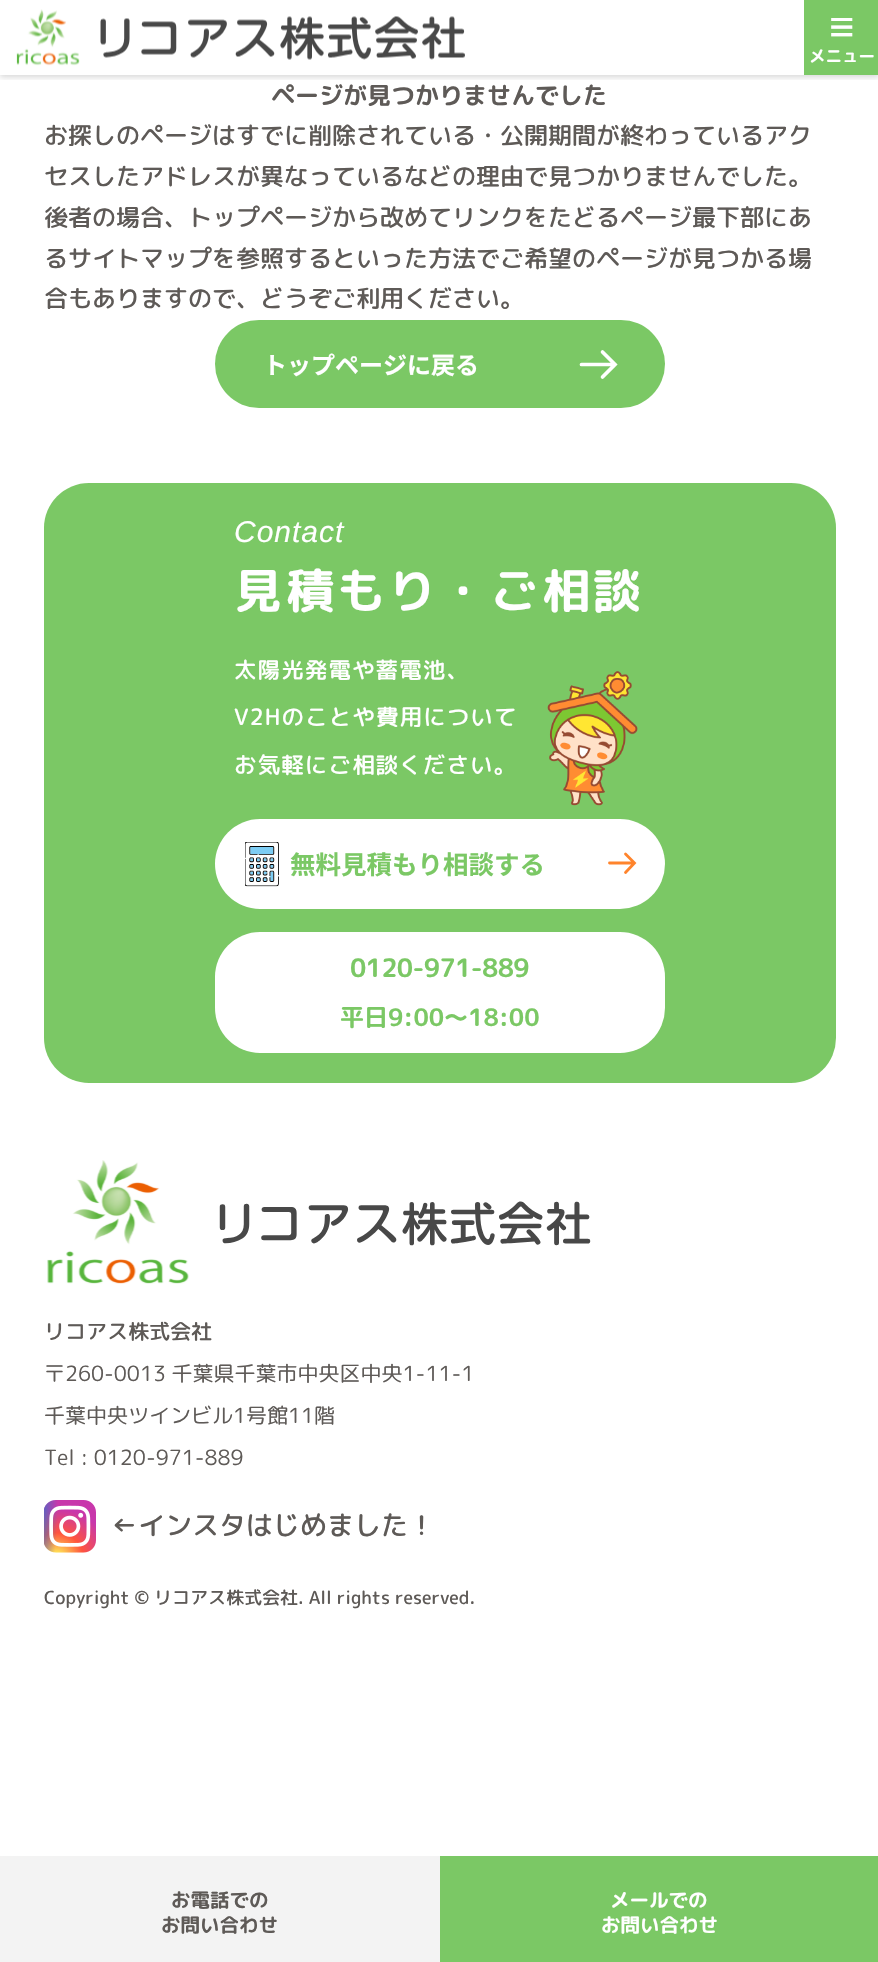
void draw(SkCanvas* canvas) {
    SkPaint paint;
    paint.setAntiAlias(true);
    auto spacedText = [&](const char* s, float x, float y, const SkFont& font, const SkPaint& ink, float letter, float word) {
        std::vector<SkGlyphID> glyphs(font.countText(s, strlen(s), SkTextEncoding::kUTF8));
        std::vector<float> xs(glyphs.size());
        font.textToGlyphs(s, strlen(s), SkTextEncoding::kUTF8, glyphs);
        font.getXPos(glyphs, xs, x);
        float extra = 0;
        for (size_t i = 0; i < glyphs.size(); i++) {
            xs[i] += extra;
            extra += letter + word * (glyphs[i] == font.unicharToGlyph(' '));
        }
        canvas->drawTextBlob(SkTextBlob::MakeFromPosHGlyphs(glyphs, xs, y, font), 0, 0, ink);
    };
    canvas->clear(0xFFFFFFFF);
    canvas->save();
    canvas->clipRect(SkRect::MakeXYWH(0, 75, 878, 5));
    paint.setColor(0x29000000);
    paint.setMaskFilter(SkMaskFilter::MakeBlur(kNormal_SkBlurStyle, 3));
    canvas->drawRect(SkRect::MakeXYWH(0, 2, 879, 75), paint);
    paint.setMaskFilter(nullptr);
    canvas->restore();
    canvas->drawImageRect(SkImages::DeferredFromEncodedData(SkData::MakeFromFileName("img1.png")), SkRect::MakeXYWH(16, 9, 449, 57), SkSamplingOptions());
    paint.setColor(0xFF7BC865);
    canvas->drawRect(SkRect::MakeXYWH(804, 0, 74, 75), paint);
    SkFont font1(fontMgr->matchFamilyStyle("Liberation Serif", SkFontStyle::Bold()), 45);
    font1.setSubpixel(true);
    paint.setColor(0xFFFFFFFF);
    canvas->drawString("≡", 829, 42, font1, paint);
    SkFont font2(fontMgr->matchFamilyStyle("Rounded Mplus 1c Bold", SkFontStyle::Bold()), 16.5f);
    font2.setSubpixel(true);
    canvas->drawString("メニュー", 809, 62, font2, paint);
    SkFont font3(fontMgr->matchFamilyStyle("Rounded Mplus 1c Bold", SkFontStyle::Bold()), 24);
    font3.setSubpixel(true);
    paint.setColor(0xFF5E5A57);
    canvas->drawString("ページが見つかりませんでした", 271, 104, font3, paint);
    SkFont font4(fontMgr->matchFamilyStyle("Rounded Mplus 1c", SkFontStyle(500, SkFontStyle::kNormal_Width, SkFontStyle::kUpright_Slant)), 24);
    font4.setSubpixel(true);
    canvas->drawString("お探しのページはすでに削除されている・公開期間が終わっているアク", 44, 144, font4, paint);
    canvas->drawString("セスしたアドレスが異なっているなどの理由で見つかりませんでした。", 44, 185, font4, paint);
    canvas->drawString("後者の場合、トップページ", 44, 226, font4, paint);
    canvas->drawString("から改めてリンクをたどるページ最下部にあ", 332, 226, font4, paint);
    canvas->drawString("るサイトマップを参照するといった方法でご希望のページが見つかる場", 44, 267, font4, paint);
    canvas->drawString("合もありますので、どうぞご利用ください。", 44, 307, font4, paint);
    paint.setColor(0xFF7BC865);
    canvas->drawRoundRect(SkRect::MakeXYWH(215, 320, 450, 88), 44, 44, paint);
    SkFont font5(fontMgr->matchFamilyStyle("Noto Sans JP", SkFontStyle::Bold()), 24);
    font5.setSubpixel(true);
    paint.setColor(0xFFFFFFFF);
    canvas->drawString("トップページに戻る", 263, 374, font5, paint);
    paint.setStyle(SkPaint::kStroke_Style);
    paint.setStrokeWidth(3.7f);
    paint.setStrokeCap(SkPaint::kRound_Cap);
    canvas->drawPath(SkPathBuilder().moveTo(602.5f, 352).lineTo(615, 364.5f).lineTo(602.5f, 377).moveTo(611.5f, 364.5f).lineTo(581.5f, 364.5f).detach(), paint);
    paint.setStyle(SkPaint::kFill_Style);
    paint.setColor(0xFF7BC865);
    canvas->drawRoundRect(SkRect::MakeXYWH(44, 483, 792, 600), 45, 45, paint);
    SkFont font6(fontMgr->matchFamilyStyle("Arimo", SkFontStyle::Italic()), 30);
    font6.setSubpixel(true);
    paint.setColor(0xFFFFFFFF);
    spacedText("Contact", 234, 542, font6, paint, 1, 0);
    SkFont font7(fontMgr->matchFamilyStyle("Rounded Mplus 1c Bold", SkFontStyle::Bold()), 48);
    font7.setSubpixel(true);
    spacedText("⾒積もり・ご相談", 234, 608, font7, paint, 3.25f, 0);
    SkFont font8(fontMgr->matchFamilyStyle("Rounded Mplus 1c", SkFontStyle(500, SkFontStyle::kNormal_Width, SkFontStyle::kUpright_Slant)), 22.5f);
    font8.setSubpixel(true);
    spacedText("太陽光発電や蓄電池、", 234, 678, font8, paint, 1.1f, 0);
    spacedText("V2Hのことや費⽤について", 234, 725, font8, paint, 1.1f, 0);
    spacedText("お気軽にご相談ください。", 234, 773, font8, paint, 1.1f, 0);
    canvas->drawImageRect(SkImages::DeferredFromEncodedData(SkData::MakeFromFileName("img2.png")), SkRect::MakeXYWH(547, 671, 91, 135), SkSamplingOptions());
    canvas->drawRoundRect(SkRect::MakeXYWH(215, 819, 450, 90), 45, 45, paint);
    canvas->drawImageRect(SkImages::DeferredFromEncodedData(SkData::MakeFromFileName("img3.png")), SkRect::MakeXYWH(245, 842, 34, 45), SkSamplingOptions());
    SkFont font9(fontMgr->matchFamilyStyle("Noto Sans JP", SkFontStyle::Bold()), 25.5f);
    font9.setSubpixel(true);
    paint.setColor(0xFF7BC865);
    canvas->drawString("無料見積もり相談する", 290, 874, font9, paint);
    paint.setStyle(SkPaint::kStroke_Style);
    paint.setStrokeWidth(2.8f);
    paint.setColor(0xFFFF842C);
    canvas->drawPath(SkPathBuilder().moveTo(625.5f, 854).lineTo(634.5f, 863).lineTo(625.5f, 872.5f).moveTo(632, 863).lineTo(609.5f, 863).detach(), paint);
    paint.setStyle(SkPaint::kFill_Style);
    paint.setColor(0xFFFFFFFF);
    canvas->drawRoundRect(SkRect::MakeXYWH(215, 932, 450, 121), 45, 45, paint);
    SkFont font10(fontMgr->matchFamilyStyle("Rounded Mplus 1c Bold", SkFontStyle::Bold()), 25.5f);
    font10.setSubpixel(true);
    paint.setColor(0xFF7BC865);
    spacedText("0120-971-889", 350, 977, font10, paint, -0.75f, 0);
    canvas->drawString("平⽇9:00〜18:00", 340, 1026, font3, paint);
    paint.setColor(0xFFF3F3F3);
    canvas->drawRect(SkRect::MakeXYWH(0, 1856, 440, 106), paint);
    SkFont font11(fontMgr->matchFamilyStyle("Rounded Mplus 1c Bold", SkFontStyle::Bold()), 19.5f);
    font11.setSubpixel(true);
    paint.setColor(0xFF5E5A57);
    canvas->drawString("お電話での", 171, 1907, font11, paint);
    canvas->drawString("お問い合わせ", 161, 1932, font11, paint);
    paint.setColor(0xFF7BC865);
    canvas->drawRect(SkRect::MakeXYWH(440, 1856, 438, 106), paint);
    paint.setColor(0xFFFFFFFF);
    canvas->drawString("メールでの", 610, 1907, font11, paint);
    canvas->drawString("お問い合わせ", 601, 1932, font11, paint);
    canvas->drawImageRect(SkImages::DeferredFromEncodedData(SkData::MakeFromFileName("img4.png")), SkRect::MakeXYWH(47, 1160, 544, 124), SkSamplingOptions());
    SkFont font12(fontMgr->matchFamilyStyle("Rounded Mplus 1c", SkFontStyle(500, SkFontStyle::kNormal_Width, SkFontStyle::kUpright_Slant)), 21);
    font12.setSubpixel(true);
    paint.setColor(0xFF5E5A57);
    canvas->drawString("リコアス株式会社", 44, 1339, font12, paint);
    SkFont font13(fontMgr->matchFamilyStyle("Rounded Mplus 1c", SkFontStyle::Normal()), 21);
    font13.setSubpixel(true);
    canvas->drawString("〒260-0013 千葉県千葉市中央区中央1-11-1", 44, 1381, font13, paint);
    canvas->drawString("千葉中央ツインビル1号館11階", 44, 1423, font13, paint);
    canvas->drawString("Tel : 0120-971-889", 44, 1465, font13, paint);
    canvas->drawImageRect(SkImages::DeferredFromEncodedData(SkData::MakeFromFileName("img5.png")), SkRect::MakeXYWH(44, 1500, 52, 53), SkSamplingOptions());
    SkFont font14(fontMgr->matchFamilyStyle("Rounded Mplus 1c", SkFontStyle(500, SkFontStyle::kNormal_Width, SkFontStyle::kUpright_Slant)), 27);
    font14.setSubpixel(true);
    canvas->drawString("←インスタはじめました！", 111, 1535, font14, paint);
    SkFont font15(fontMgr->matchFamilyStyle("Rounded Mplus 1c", SkFontStyle(500, SkFontStyle::kNormal_Width, SkFontStyle::kUpright_Slant)), 18);
    font15.setSubpixel(true);
    canvas->drawString("Copyright © リコアス株式会社", 44, 1604, font15, paint);
    canvas->drawString(". All rights reserved.", 298, 1604, font15, paint);
}
